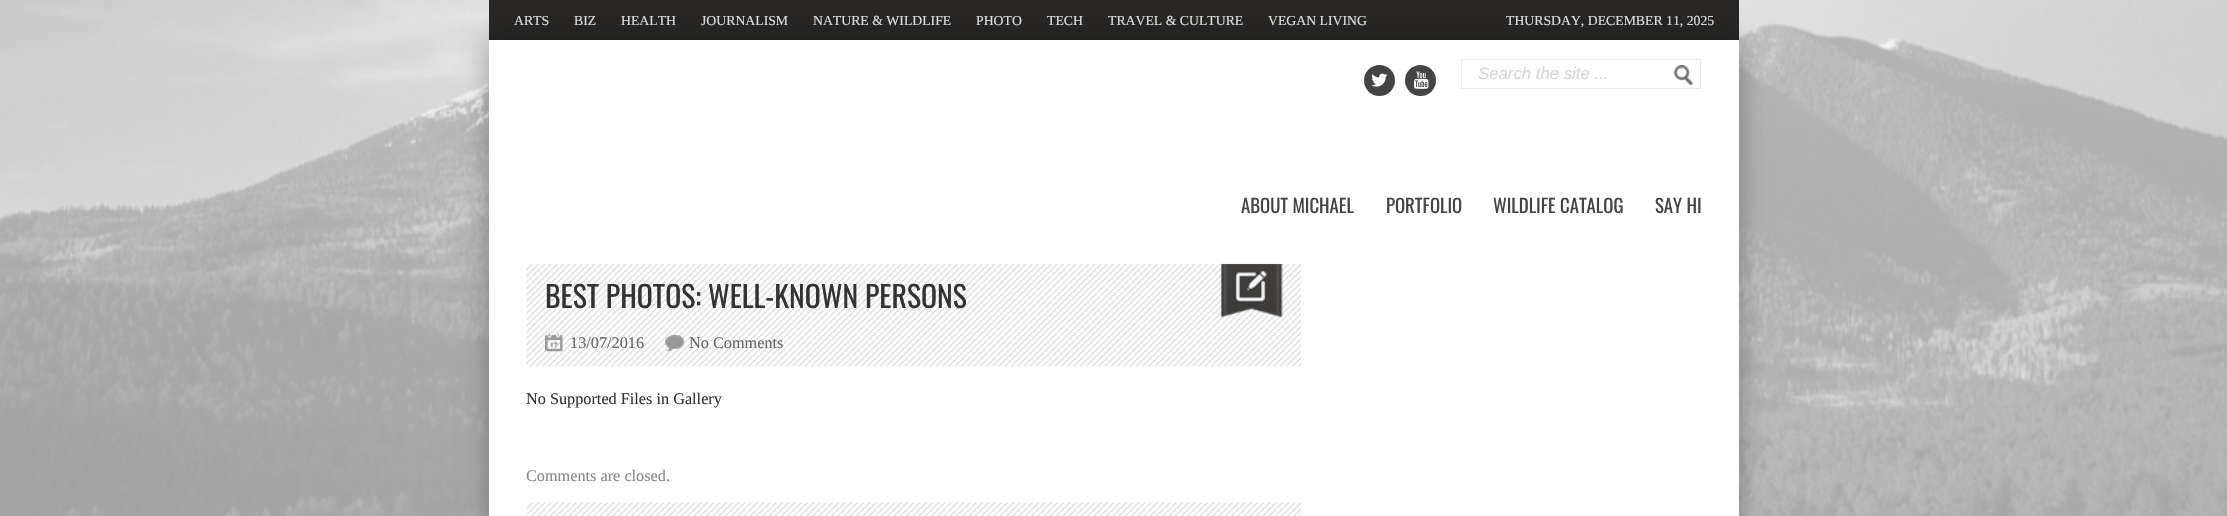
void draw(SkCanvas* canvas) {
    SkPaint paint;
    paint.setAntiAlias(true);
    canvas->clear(0xFFFFFFFF);
    canvas->drawImageRect(SkImages::DeferredFromEncodedData(SkData::MakeFromFileName("img1.png")), SkRect::MakeXYWH(0, 0, 2227, 516), SkSamplingOptions());
    paint.setColor(0xFF272625);
    canvas->drawRect(SkRect::MakeXYWH(489, 0, 1250, 40), paint);
    SkFont font1(fontMgr->matchFamilyStyle("Liberation Serif", SkFontStyle::Normal()), 13.75f);
    font1.setSubpixel(true);
    paint.setColor(0xFFE1E1E1);
    canvas->drawString("ARTS", 514, 25, font1, paint);
    canvas->drawString("BIZ", 574, 25, font1, paint);
    canvas->drawString("HEALTH", 621, 25, font1, paint);
    canvas->drawString("JOURNALISM", 701, 25, font1, paint);
    canvas->drawString("NATURE & WILDLIFE", 813, 25, font1, paint);
    canvas->drawString("PHOTO", 976, 25, font1, paint);
    canvas->drawString("TECH", 1047, 25, font1, paint);
    canvas->drawString("TRAVEL & CULTURE", 1108, 25, font1, paint);
    canvas->drawString("VEGAN LIVING", 1268, 25, font1, paint);
    canvas->drawString("THURSDAY, DECEMBER 11, 2025", 1506, 25, font1, paint);
    paint.setColor(0x4D000000);
    paint.setMaskFilter(SkMaskFilter::MakeBlur(kNormal_SkBlurStyle, 12.5f));
    canvas->drawRect(SkRect::MakeXYWH(489, 40, 1250, 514), paint);
    paint.setMaskFilter(nullptr);
    paint.setColor(0xFFFFFFFF);
    canvas->drawRect(SkRect::MakeXYWH(489, 40, 1250, 476), paint);
    paint.setColor(0xFF444444);
    canvas->drawCircle(1379.5f, 80.5f, 15.5f, paint);
    canvas->drawImageRect(SkImages::DeferredFromEncodedData(SkData::MakeFromFileName("img2.png")), SkRect::MakeXYWH(1371, 73, 17, 14), SkSamplingOptions());
    canvas->drawCircle(1420.5f, 80.5f, 15.5f, paint);
    canvas->drawImageRect(SkImages::DeferredFromEncodedData(SkData::MakeFromFileName("img3.png")), SkRect::MakeXYWH(1414, 71, 15, 18), SkSamplingOptions());
    paint.setStyle(SkPaint::kStroke_Style);
    paint.setStrokeWidth(1);
    paint.setColor(0xFFEBEBEB);
    canvas->drawRect(SkRect::MakeXYWH(1461.5f, 59.5f, 239, 29), paint);
    SkFont font2(fontMgr->matchFamilyStyle("Liberation Sans", SkFontStyle::Italic()), 16.75f);
    font2.setSubpixel(true);
    paint.setStyle(SkPaint::kFill_Style);
    paint.setColor(0xFFD7D7D7);
    canvas->drawString("Search the site ...", 1478, 79, font2, paint);
    canvas->drawImageRect(SkImages::DeferredFromEncodedData(SkData::MakeFromFileName("img4.png")), SkRect::MakeXYWH(1673, 65, 20, 20), SkSamplingOptions());
    SkFont font3(fontMgr->matchFamilyStyle("Oswald", SkFontStyle::Normal()), 18.75f);
    font3.setSubpixel(true);
    paint.setColor(0xFF444444);
    canvas->drawString("ABOUT MICHAEL", 1241, 213, font3, paint);
    canvas->drawString("PORTFOLIO", 1386, 213, font3, paint);
    canvas->drawString("WILDLIFE CATALOG", 1493, 213, font3, paint);
    canvas->drawString("SAY HI", 1655, 213, font3, paint);
    canvas->drawImageRect(SkImages::DeferredFromEncodedData(SkData::MakeFromFileName("img5.png")), SkRect::MakeXYWH(526, 264, 775, 103), SkSamplingOptions());
    SkFont font4(fontMgr->matchFamilyStyle("Oswald", SkFontStyle::Normal()), 29.75f);
    font4.setSubpixel(true);
    paint.setColor(0xFF333333);
    canvas->drawString("BEST PHOTOS: WELL-KNOWN PERSONS", 545, 308, font4, paint);
    canvas->drawImageRect(SkImages::DeferredFromEncodedData(SkData::MakeFromFileName("img6.png")), SkRect::MakeXYWH(545, 333, 18, 19), SkSamplingOptions());
    SkFont font5(fontMgr->matchFamilyStyle("Liberation Serif", SkFontStyle::Normal()), 16.25f);
    font5.setSubpixel(true);
    paint.setColor(0xFF666666);
    canvas->drawString("13/07/2016", 570, 348, font5, paint);
    canvas->drawImageRect(SkImages::DeferredFromEncodedData(SkData::MakeFromFileName("img7.png")), SkRect::MakeXYWH(664, 335, 21, 17), SkSamplingOptions());
    canvas->drawString("No Comments", 689, 348, font5, paint);
    canvas->drawImageRect(SkImages::DeferredFromEncodedData(SkData::MakeFromFileName("img8.png")), SkRect::MakeXYWH(1220, 263, 63, 55), SkSamplingOptions());
    paint.setColor(0xFF333333);
    canvas->drawString("No Supported Files in Gallery", 526, 404, font5, paint);
    paint.setColor(0xFF888888);
    canvas->drawString("Comments are closed.", 526, 481, font5, paint);
    canvas->drawImageRect(SkImages::DeferredFromEncodedData(SkData::MakeFromFileName("img9.png")), SkRect::MakeXYWH(526, 502, 776, 14), SkSamplingOptions());
}
